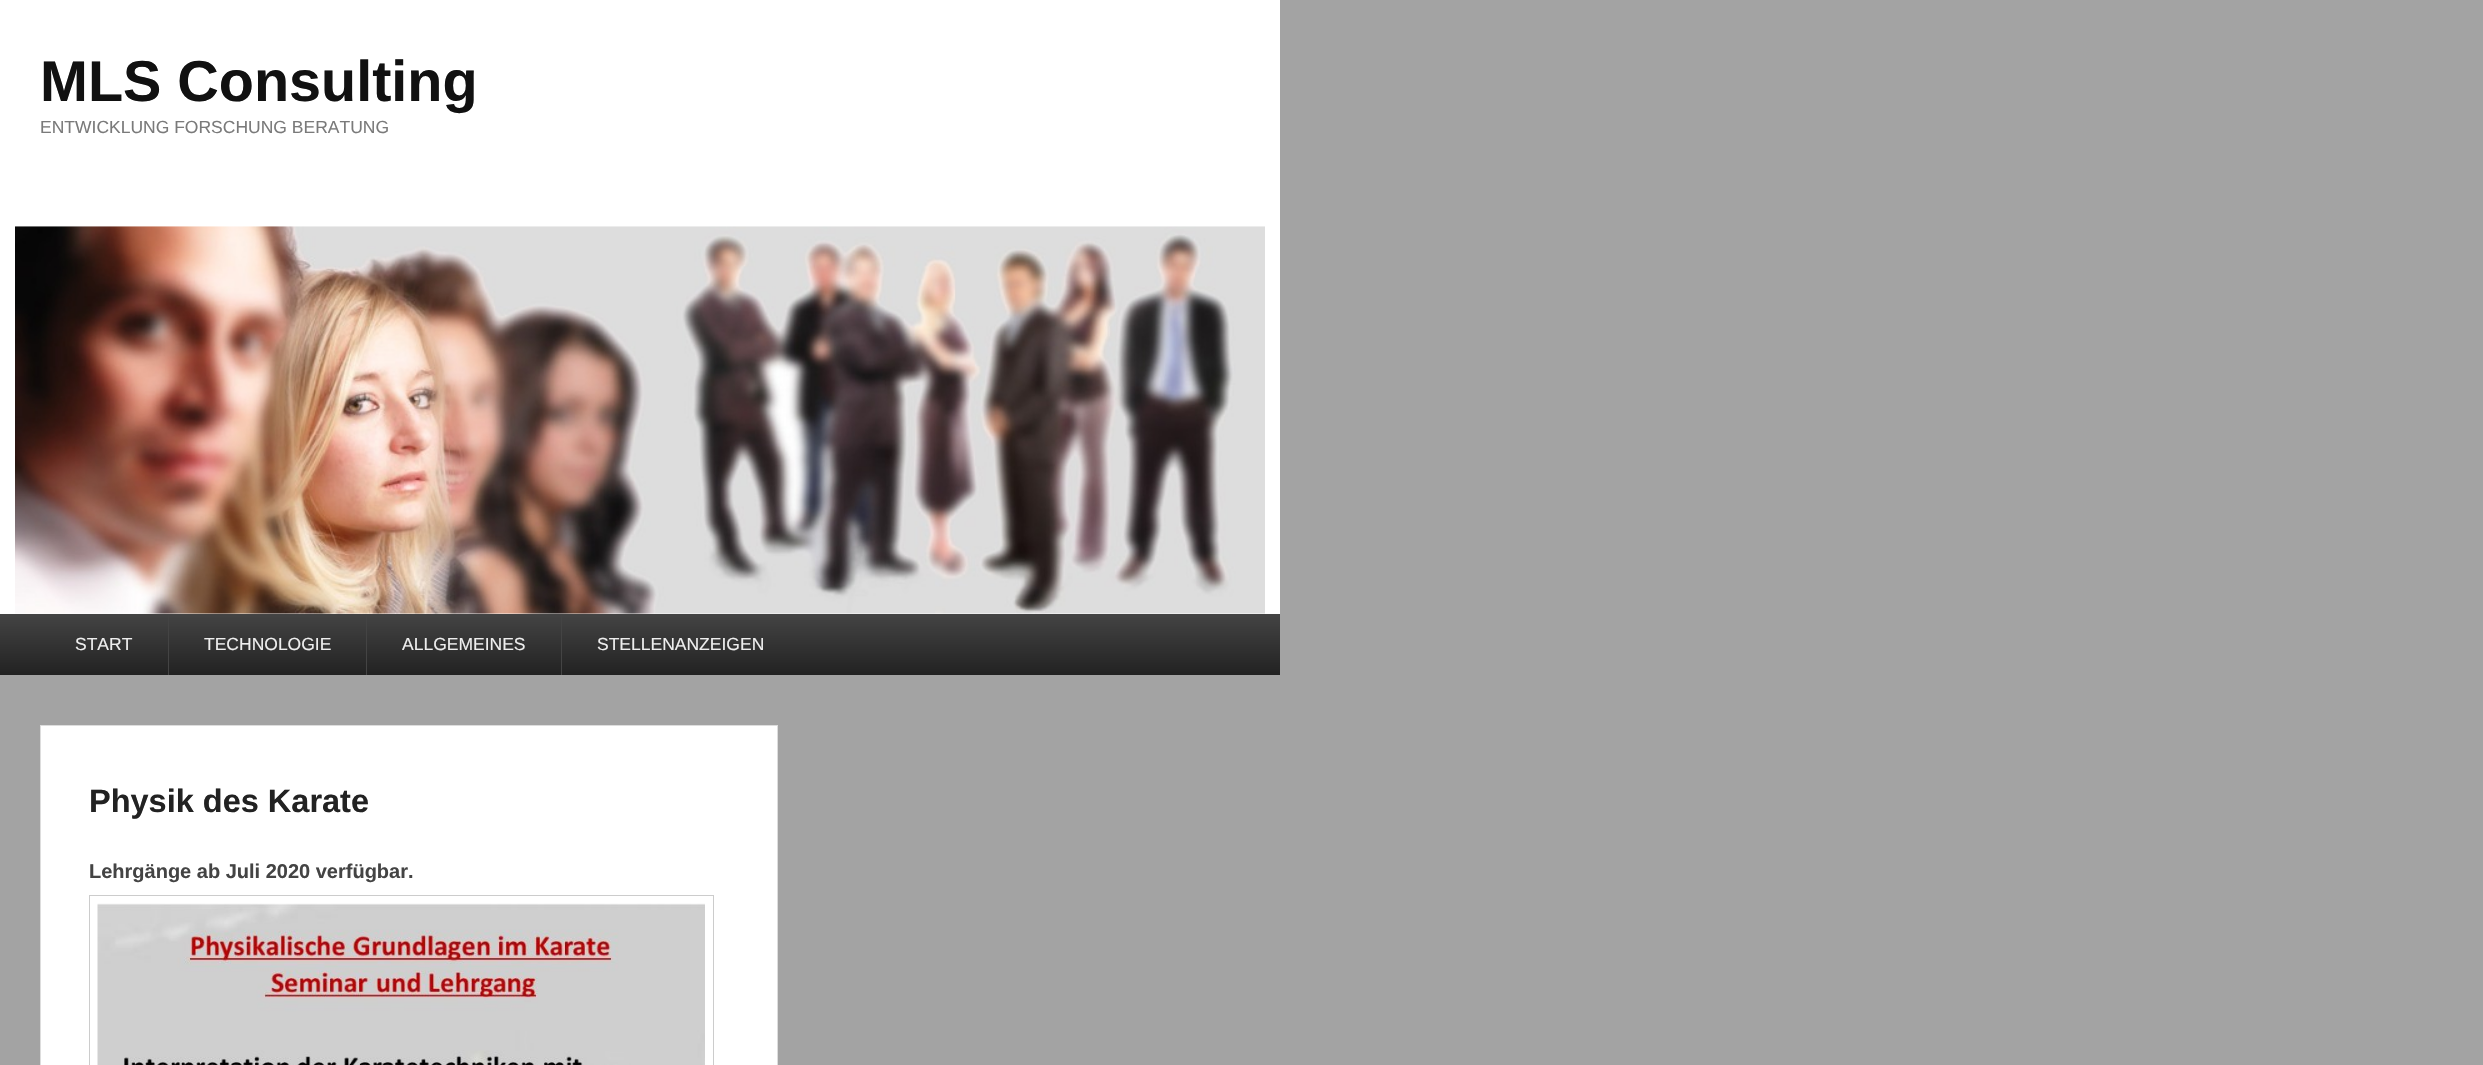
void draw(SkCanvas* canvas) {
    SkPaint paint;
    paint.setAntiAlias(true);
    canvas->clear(0xFFA3A3A3);
    paint.setColor(0xFFFFFFFF);
    canvas->drawRect(SkRect::MakeXYWH(0, 0, 1280, 614), paint);
    SkFont font1(fontMgr->matchFamilyStyle("Liberation Sans", SkFontStyle::Bold()), 57.5f);
    font1.setSubpixel(true);
    paint.setColor(0xFF111111);
    canvas->drawString("MLS Consulting", 40, 101, font1, paint);
    SkFont font2(fontMgr->matchFamilyStyle("Liberation Sans", SkFontStyle::Normal()), 17.5f);
    font2.setSubpixel(true);
    paint.setColor(0xFF7A7A7A);
    canvas->drawString("ENTWICKLUNG FORSCHUNG BERATUNG", 40, 133, font2, paint);
    canvas->drawImageRect(SkImages::DeferredFromEncodedData(SkData::MakeFromFileName("img1.png")), SkRect::MakeXYWH(15, 226, 1250, 388), SkSamplingOptions());
    {
        const SkColor colors[] = {0xFF444444, 0xFF222222};
        const float stops[] = {0, 1};
        const SkPoint ends[] = {{640, 614}, {640, 675}};
        paint.setShader(SkGradientShader::MakeLinear(ends, colors, stops, 2, SkTileMode::kClamp));
        paint.setAlpha(255);
    }
    canvas->drawRect(SkRect::MakeXYWH(0, 614, 1280, 61), paint);
    paint.setShader(nullptr);
    paint.setColor(0xFF444444);
    canvas->drawRect(SkRect::MakeXYWH(168, 614, 1, 61), paint);
    paint.setColor(0xFFEEEEEE);
    canvas->drawString("START", 75, 650, font2, paint);
    paint.setColor(0xFF444444);
    canvas->drawRect(SkRect::MakeXYWH(366, 614, 1, 61), paint);
    paint.setColor(0xFFEEEEEE);
    canvas->drawString("TECHNOLOGIE", 204, 650, font2, paint);
    paint.setColor(0xFF444444);
    canvas->drawRect(SkRect::MakeXYWH(561, 614, 1, 61), paint);
    paint.setColor(0xFFEEEEEE);
    canvas->drawString("ALLGEMEINES", 402, 650, font2, paint);
    canvas->drawString("STELLENANZEIGEN", 597, 650, font2, paint);
    paint.setColor(0xFFFFFFFF);
    canvas->drawRect(SkRect::MakeXYWH(40.5f, 725.5f, 737, 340), paint);
    paint.setStyle(SkPaint::kStroke_Style);
    paint.setStrokeWidth(1);
    paint.setColor(0xFFDDDDDD);
    canvas->drawRect(SkRect::MakeXYWH(40.5f, 725.5f, 737, 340), paint);
    SkFont font3(fontMgr->matchFamilyStyle("Liberation Sans", SkFontStyle::Bold()), 32.5f);
    font3.setSubpixel(true);
    paint.setStyle(SkPaint::kFill_Style);
    paint.setColor(0xFF222222);
    canvas->drawString("Physik des Karate", 89, 812, font3, paint);
    SkFont font4(fontMgr->matchFamilyStyle("Liberation Sans", SkFontStyle::Bold()), 20);
    font4.setSubpixel(true);
    paint.setColor(0xFF444444);
    canvas->drawString("Lehrgänge ab Juli 2020 verfügbar.", 89, 878, font4, paint);
    paint.setStyle(SkPaint::kStroke_Style);
    paint.setColor(0xFFCCCCCC);
    canvas->drawRect(SkRect::MakeXYWH(89.5f, 895.5f, 624, 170), paint);
    canvas->drawImageRect(SkImages::DeferredFromEncodedData(SkData::MakeFromFileName("img2.png")), SkRect::MakeXYWH(97, 903, 608, 162), SkSamplingOptions());
}
